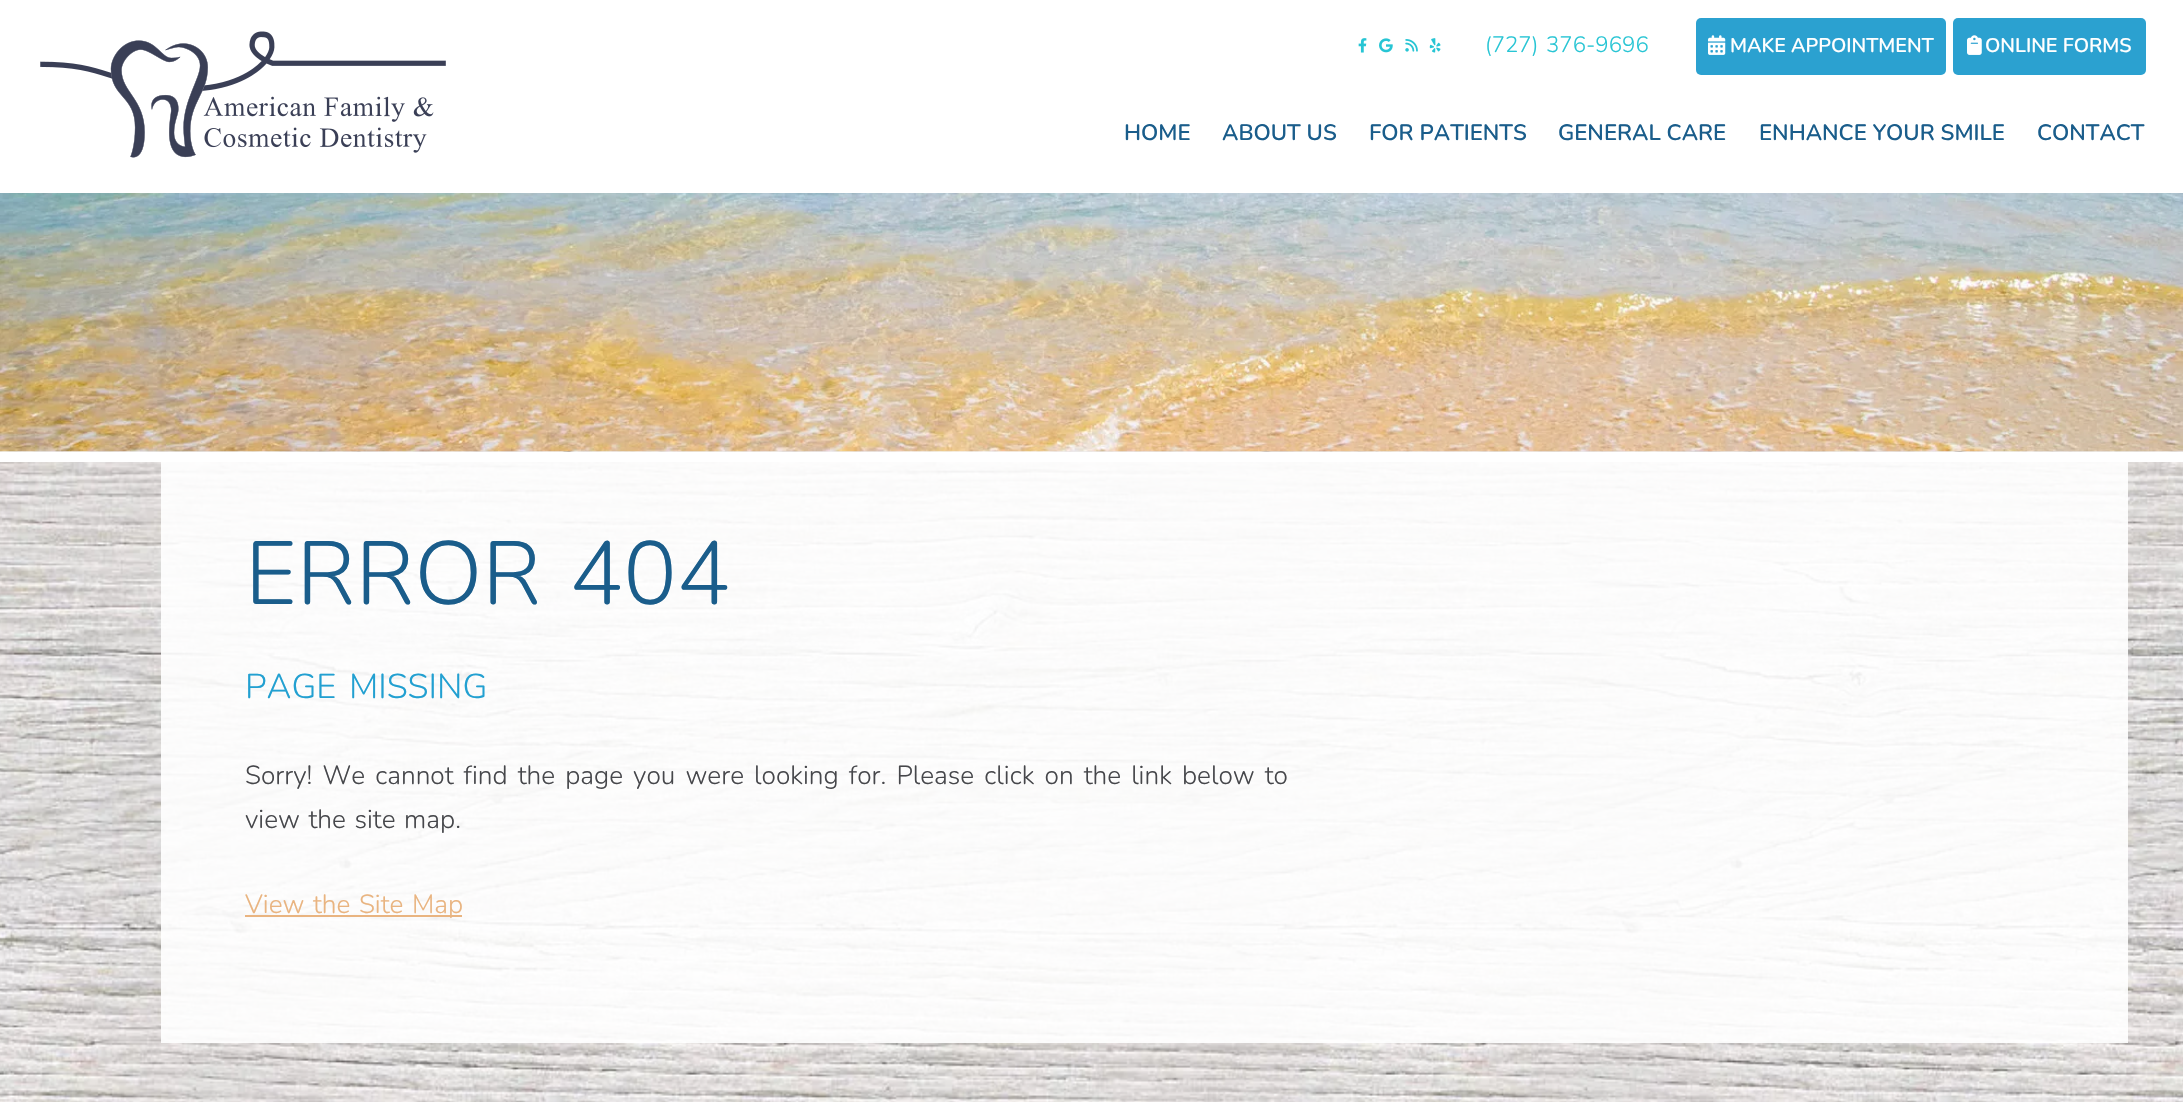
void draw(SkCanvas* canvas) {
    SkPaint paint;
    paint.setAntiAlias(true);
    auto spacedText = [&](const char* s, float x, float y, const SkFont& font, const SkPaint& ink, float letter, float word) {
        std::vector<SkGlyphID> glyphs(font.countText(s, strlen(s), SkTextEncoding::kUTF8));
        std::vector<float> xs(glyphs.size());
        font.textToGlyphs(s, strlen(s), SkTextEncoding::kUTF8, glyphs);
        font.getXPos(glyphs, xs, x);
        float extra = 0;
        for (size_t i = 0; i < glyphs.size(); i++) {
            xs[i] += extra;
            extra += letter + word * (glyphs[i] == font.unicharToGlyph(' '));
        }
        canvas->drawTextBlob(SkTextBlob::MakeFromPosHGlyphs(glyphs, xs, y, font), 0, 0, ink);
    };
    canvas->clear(0xFFFFFFFF);
    canvas->drawImageRect(SkImages::DeferredFromEncodedData(SkData::MakeFromFileName("img1.png")), SkRect::MakeXYWH(40, 31, 406, 127), SkSamplingOptions());
    canvas->drawImageRect(SkImages::DeferredFromEncodedData(SkData::MakeFromFileName("img2.png")), SkRect::MakeXYWH(1358, 38, 9, 15), SkSamplingOptions());
    canvas->drawImageRect(SkImages::DeferredFromEncodedData(SkData::MakeFromFileName("img3.png")), SkRect::MakeXYWH(1379, 38, 14, 15), SkSamplingOptions());
    canvas->drawImageRect(SkImages::DeferredFromEncodedData(SkData::MakeFromFileName("img4.png")), SkRect::MakeXYWH(1405, 39, 13, 13), SkSamplingOptions());
    canvas->drawImageRect(SkImages::DeferredFromEncodedData(SkData::MakeFromFileName("img5.png")), SkRect::MakeXYWH(1429, 38, 12, 15), SkSamplingOptions());
    SkFont font1(fontMgr->matchFamilyStyle("Nunito", SkFontStyle(300, SkFontStyle::kNormal_Width, SkFontStyle::kUpright_Slant)), 22.25f);
    font1.setSubpixel(true);
    paint.setColor(0xFF27C5D4);
    spacedText("(727) 376-9696", 1485, 52, font1, paint, 0, 2);
    paint.setColor(0xFF2BA1D0);
    canvas->drawRoundRect(SkRect::MakeXYWH(1696, 18, 250, 57), 5, 5, paint);
    canvas->drawImageRect(SkImages::DeferredFromEncodedData(SkData::MakeFromFileName("img6.png")), SkRect::MakeXYWH(1708, 35, 18, 20), SkSamplingOptions());
    SkFont font2(fontMgr->matchFamilyStyle("Nunito", SkFontStyle(600, SkFontStyle::kNormal_Width, SkFontStyle::kUpright_Slant)), 19.75f);
    font2.setSubpixel(true);
    paint.setColor(0xFFFFFFFF);
    canvas->drawString("MAKE APPOINTMENT", 1730, 52, font2, paint);
    paint.setColor(0xFF2BA1D0);
    canvas->drawRoundRect(SkRect::MakeXYWH(1953, 18, 193, 57), 5, 5, paint);
    canvas->drawImageRect(SkImages::DeferredFromEncodedData(SkData::MakeFromFileName("img7.png")), SkRect::MakeXYWH(1967, 35, 15, 20), SkSamplingOptions());
    paint.setColor(0xFFFFFFFF);
    canvas->drawString("ONLINE FORMS", 1985, 52, font2, paint);
    SkFont font3(fontMgr->matchFamilyStyle("Nunito", SkFontStyle(600, SkFontStyle::kNormal_Width, SkFontStyle::kUpright_Slant)), 22.25f);
    font3.setSubpixel(true);
    paint.setColor(0xFF1A5D8B);
    canvas->drawString("HOME", 1124, 140, font3, paint);
    canvas->drawString("ABOUT US", 1222, 140, font3, paint);
    canvas->drawString("FOR PATIENTS", 1369, 140, font3, paint);
    canvas->drawString("GENERAL CARE", 1558, 140, font3, paint);
    canvas->drawString("ENHANCE YOUR SMILE", 1759, 140, font3, paint);
    canvas->drawString("CONTACT", 2037, 140, font3, paint);
    canvas->drawImageRect(SkImages::DeferredFromEncodedData(SkData::MakeFromFileName("img8.png")), SkRect::MakeXYWH(0, 193, 2183, 259), SkSamplingOptions());
    canvas->drawImageRect(SkImages::DeferredFromEncodedData(SkData::MakeFromFileName("img9.png")), SkRect::MakeXYWH(0, 451, 2183, 651), SkSamplingOptions());
    paint.setColor(0xFFFFFFFF);
    canvas->drawRect(SkRect::MakeXYWH(0, 452, 2183, 10), paint);
    paint.setColor(0xE6FFFFFF);
    canvas->drawRect(SkRect::MakeXYWH(161, 462, 1967, 581), paint);
    SkFont font4(fontMgr->matchFamilyStyle("Nunito", SkFontStyle(300, SkFontStyle::kNormal_Width, SkFontStyle::kUpright_Slant)), 89.25f);
    font4.setSubpixel(true);
    paint.setColor(0xFF1A5D8B);
    spacedText("ERROR 404", 245, 604, font4, paint, 0, 6);
    SkFont font5(fontMgr->matchFamilyStyle("Nunito", SkFontStyle(300, SkFontStyle::kNormal_Width, SkFontStyle::kUpright_Slant)), 34.5f);
    font5.setSubpixel(true);
    paint.setColor(0xFF22A0D1);
    spacedText("PAGE MISSING", 245, 698, font5, paint, 0, 4);
    SkFont font6(fontMgr->matchFamilyStyle("Nunito", SkFontStyle(300, SkFontStyle::kNormal_Width, SkFontStyle::kUpright_Slant)), 26.25f);
    font6.setSubpixel(true);
    paint.setColor(0xFF46474B);
    spacedText("Sorry! We cannot find the page you were looking for. Please click on the link below to", 245, 784, font6, paint, 0, 3.5f);
    spacedText("view the site map.", 245, 828, font6, paint, 0, 2);
    paint.setColor(0xFFE9B480);
    canvas->drawRect(SkRect::MakeXYWH(245, 915, 217, 2), paint);
    spacedText("View the Site Map", 245, 913, font6, paint, 0, 2);
}
